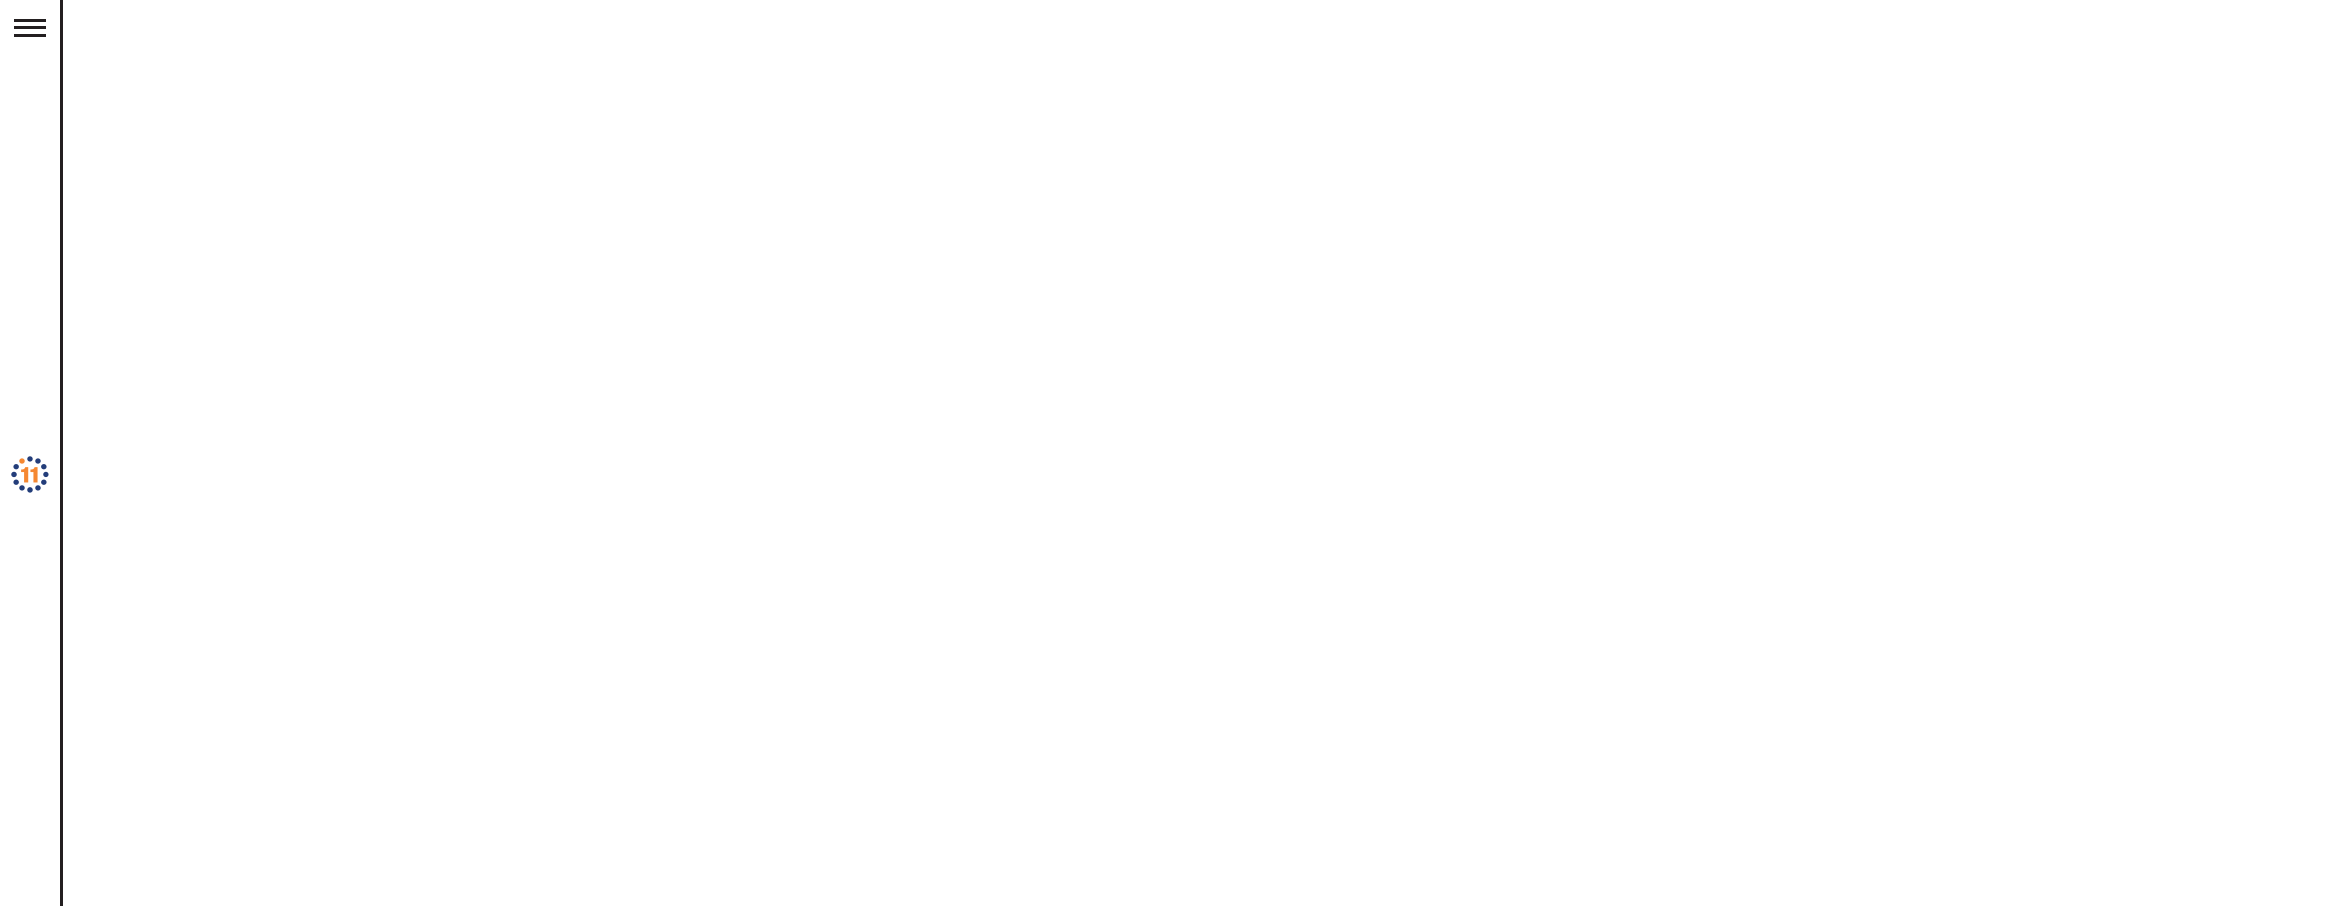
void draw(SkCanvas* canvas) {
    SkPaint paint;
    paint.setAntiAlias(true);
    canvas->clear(0xFFFFFFFF);
    paint.setColor(0xFF231F20);
    canvas->drawRect(SkRect::MakeXYWH(60, 0, 3, 906), paint);
    canvas->drawRect(SkRect::MakeXYWH(14, 34, 32, 3), paint);
    canvas->drawRect(SkRect::MakeXYWH(14, 19, 32, 3), paint);
    canvas->drawRect(SkRect::MakeXYWH(14, 26, 32, 3), paint);
    canvas->drawImageRect(SkImages::DeferredFromEncodedData(SkData::MakeFromFileName("img1.png")), SkRect::MakeXYWH(11, 456, 38, 37), SkSamplingOptions());
}
